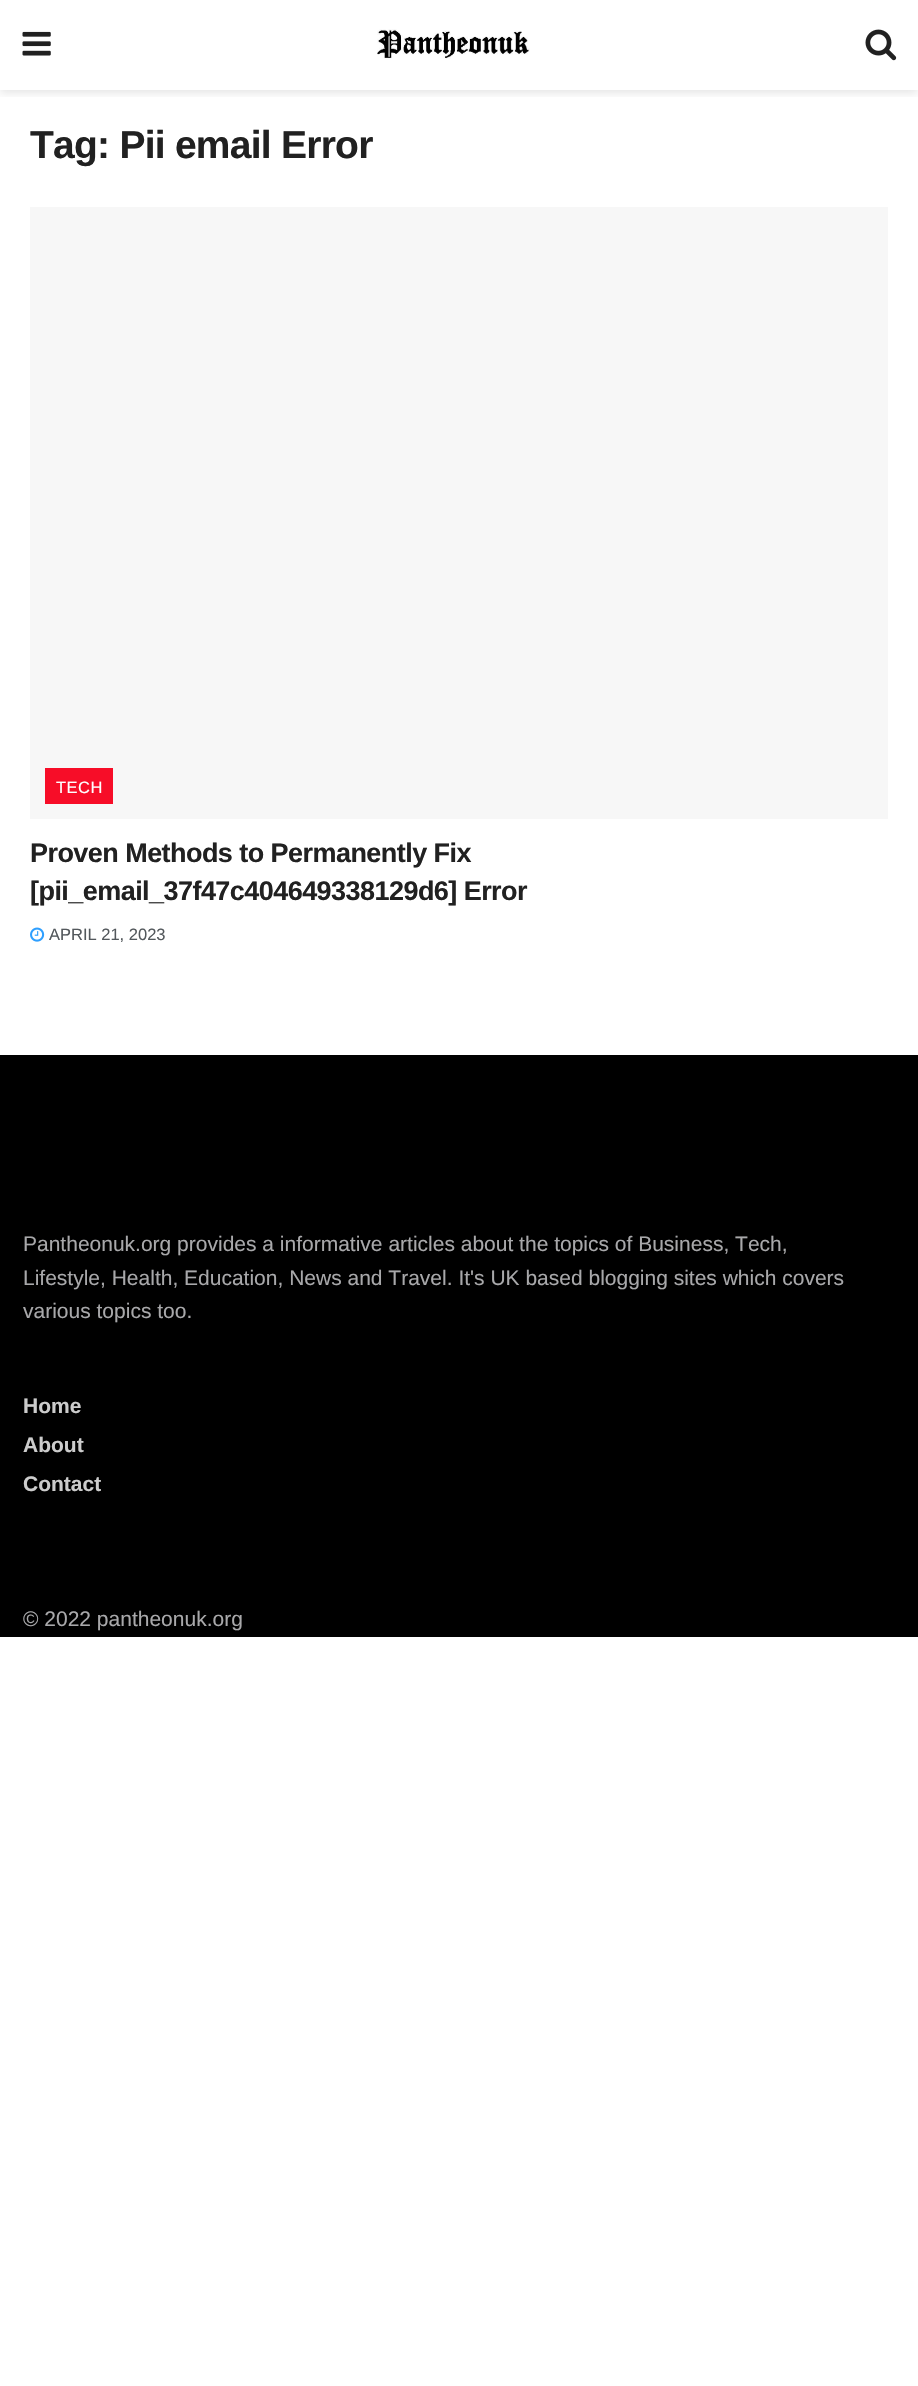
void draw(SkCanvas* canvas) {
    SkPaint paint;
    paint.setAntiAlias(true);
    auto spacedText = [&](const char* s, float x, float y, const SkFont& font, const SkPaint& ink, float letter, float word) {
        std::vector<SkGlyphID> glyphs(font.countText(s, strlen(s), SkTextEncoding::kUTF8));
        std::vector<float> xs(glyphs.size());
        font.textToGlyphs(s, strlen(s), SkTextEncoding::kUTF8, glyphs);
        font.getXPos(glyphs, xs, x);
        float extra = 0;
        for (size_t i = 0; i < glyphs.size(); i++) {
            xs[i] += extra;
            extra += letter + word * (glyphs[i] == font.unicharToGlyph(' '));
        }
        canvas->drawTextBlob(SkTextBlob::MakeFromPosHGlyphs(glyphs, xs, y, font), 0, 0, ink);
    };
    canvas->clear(0xFFFFFFFF);
    canvas->save();
    canvas->clipRect(SkRect::MakeXYWH(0, 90, 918, 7));
    paint.setColor(0x1A000000);
    paint.setMaskFilter(SkMaskFilter::MakeBlur(kNormal_SkBlurStyle, 4.5f));
    canvas->drawRect(SkRect::MakeXYWH(0, 3, 918, 90), paint);
    paint.setMaskFilter(nullptr);
    canvas->restore();
    canvas->drawImageRect(SkImages::DeferredFromEncodedData(SkData::MakeFromFileName("img1.png")), SkRect::MakeXYWH(22, 31, 29, 25), SkSamplingOptions());
    canvas->drawImageRect(SkImages::DeferredFromEncodedData(SkData::MakeFromFileName("img2.png")), SkRect::MakeXYWH(377, 29, 153, 30), SkSamplingOptions());
    canvas->drawImageRect(SkImages::DeferredFromEncodedData(SkData::MakeFromFileName("img3.png")), SkRect::MakeXYWH(865, 29, 32, 32), SkSamplingOptions());
    SkFont font1(fontMgr->matchFamilyStyle("Liberation Sans", SkFontStyle::Bold()), 39);
    font1.setSubpixel(true);
    paint.setColor(0xFF212121);
    spacedText("Tag: Pii email Error", 30, 158, font1, paint, -0.75f, 0);
    paint.setColor(0xFFF7F7F7);
    canvas->drawRect(SkRect::MakeXYWH(30, 207, 858, 612), paint);
    paint.setColor(0xFFF70D28);
    canvas->drawRect(SkRect::MakeXYWH(45, 768, 68, 36), paint);
    SkFont font2(fontMgr->matchFamilyStyle("Liberation Sans", SkFontStyle::Normal()), 16.5f);
    font2.setSubpixel(true);
    paint.setColor(0xFFFFFFFF);
    spacedText("TECH", 56, 793, font2, paint, 0.5f, 0);
    SkFont font3(fontMgr->matchFamilyStyle("Liberation Sans", SkFontStyle::Bold()), 27);
    font3.setSubpixel(true);
    paint.setColor(0xFF212121);
    spacedText("Proven Methods to Permanently Fix", 30, 862, font3, paint, -0.55f, 0);
    spacedText("[pii_email_37f47c404649338129d6] Error", 30, 900, font3, paint, -0.55f, 0);
    canvas->drawImageRect(SkImages::DeferredFromEncodedData(SkData::MakeFromFileName("img4.png")), SkRect::MakeXYWH(30, 927, 15, 15), SkSamplingOptions());
    paint.setColor(0xFF53585C);
    canvas->drawString("APRIL 21, 2023", 49, 940, font2, paint);
    paint.setColor(0xFF000000);
    canvas->drawRect(SkRect::MakeXYWH(0, 1055, 918, 582), paint);
    SkFont font4(fontMgr->matchFamilyStyle("Liberation Sans", SkFontStyle::Normal()), 21);
    font4.setSubpixel(true);
    paint.setColor(0xFFA8A8AA);
    canvas->drawString("Pantheonuk.org provides a informative articles about the topics of Business, Tech,", 23, 1251, font4, paint);
    canvas->drawString("Lifestyle, Health, Education, News and Travel. It's UK based blogging sites which covers", 23, 1285, font4, paint);
    canvas->drawString("various topics too.", 23, 1318, font4, paint);
    SkFont font5(fontMgr->matchFamilyStyle("Liberation Sans", SkFontStyle::Bold()), 21);
    font5.setSubpixel(true);
    paint.setColor(0xFFCCCCCC);
    canvas->drawString("Home", 23, 1413, font5, paint);
    canvas->drawString("About", 23, 1452, font5, paint);
    canvas->drawString("Contact", 23, 1491, font5, paint);
    paint.setColor(0xFFA8A8AA);
    canvas->drawString("© 2022 pantheonuk.org", 23, 1626, font4, paint);
}
